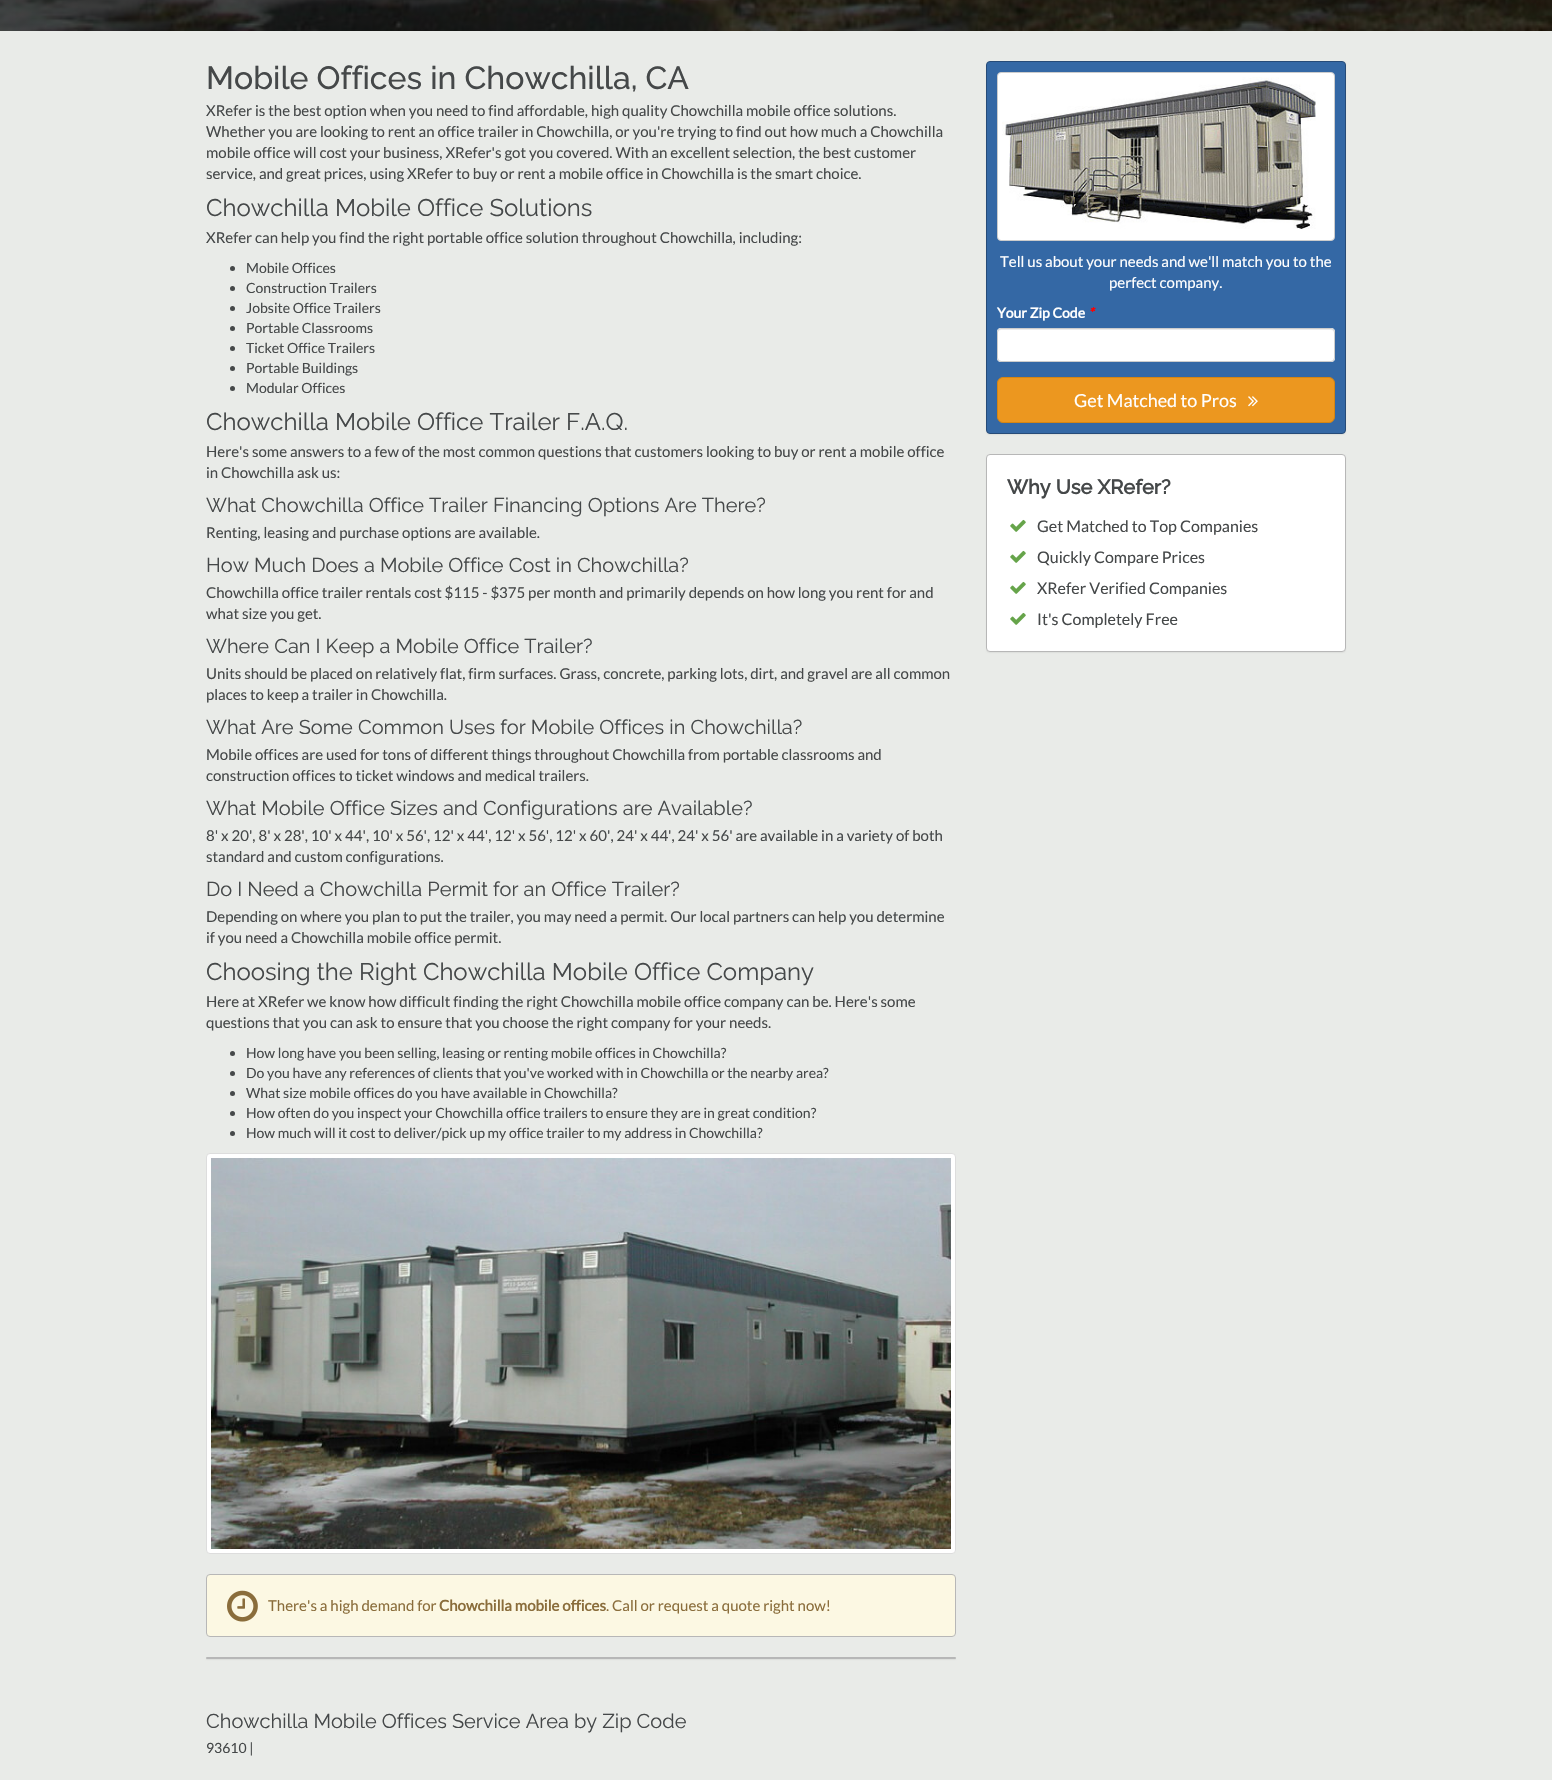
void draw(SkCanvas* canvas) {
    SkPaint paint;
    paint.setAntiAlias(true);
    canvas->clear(0xFFE9EBE8);
    canvas->drawImageRect(SkImages::DeferredFromEncodedData(SkData::MakeFromFileName("img1.png")), SkRect::MakeXYWH(0, 0, 1552, 31), SkSamplingOptions());
    SkFont font1(fontMgr->matchFamilyStyle("Raleway", SkFontStyle(500, SkFontStyle::kNormal_Width, SkFontStyle::kUpright_Slant)), 32);
    font1.setSubpixel(true);
    paint.setColor(0xFF454849);
    canvas->drawString("Mobile Offices in Chowchilla, CA", 206, 89, font1, paint);
    SkFont font2(fontMgr->matchFamilyStyle("Lato", SkFontStyle::Normal()), 15);
    font2.setSubpixel(true);
    canvas->drawString("XRefer is the best option when you need to find affordable, high quality Chowchilla mobile office solutions.", 206, 116, font2, paint);
    canvas->drawString("Whether you are looking to rent an office trailer in Chowchilla, or you're trying to find out how much a Chowchilla", 206, 137, font2, paint);
    canvas->drawString("mobile office will cost your business, XRefer's got you covered. With an excellent selection, the best customer", 206, 158, font2, paint);
    canvas->drawString("service, and great prices, using XRefer to buy or rent a mobile office in Chowchilla is the smart choice.", 206, 179, font2, paint);
    SkFont font3(fontMgr->matchFamilyStyle("Raleway", SkFontStyle::Normal()), 24);
    font3.setSubpixel(true);
    canvas->drawString("Chowchilla Mobile Office Solutions", 206, 216, font3, paint);
    canvas->drawString("XRefer can help you find the right portable office solution throughout Chowchilla, including:", 206, 243, font2, paint);
    canvas->drawCircle(232.5f, 268.5f, 2.5f, paint);
    SkFont font4(fontMgr->matchFamilyStyle("Lato", SkFontStyle::Normal()), 14);
    font4.setSubpixel(true);
    canvas->drawString("Mobile Offices", 246, 273, font4, paint);
    canvas->drawCircle(232.5f, 288.5f, 2.5f, paint);
    canvas->drawString("Construction Trailers", 246, 293, font4, paint);
    canvas->drawCircle(232.5f, 308.5f, 2.5f, paint);
    canvas->drawString("Jobsite Office Trailers", 246, 313, font4, paint);
    canvas->drawCircle(232.5f, 328.5f, 2.5f, paint);
    canvas->drawString("Portable Classrooms", 246, 333, font4, paint);
    canvas->drawCircle(232.5f, 348.5f, 2.5f, paint);
    canvas->drawString("Ticket Office Trailers", 246, 353, font4, paint);
    canvas->drawCircle(232.5f, 368.5f, 2.5f, paint);
    canvas->drawString("Portable Buildings", 246, 373, font4, paint);
    canvas->drawCircle(232.5f, 388.5f, 2.5f, paint);
    canvas->drawString("Modular Offices", 246, 393, font4, paint);
    canvas->drawString("Chowchilla Mobile Office Trailer F.A.Q.", 206, 430, font3, paint);
    canvas->drawString("Here's some answers to a few of the most common questions that customers looking to buy or rent a mobile office", 206, 457, font2, paint);
    canvas->drawString("in Chowchilla ask us:", 206, 478, font2, paint);
    SkFont font5(fontMgr->matchFamilyStyle("Raleway", SkFontStyle::Normal()), 20);
    font5.setSubpixel(true);
    canvas->drawString("What Chowchilla Office Trailer Financing Options Are There?", 206, 512, font5, paint);
    canvas->drawString("Renting, leasing and purchase options are available.", 206, 538, font2, paint);
    canvas->drawString("How Much Does a Mobile Office Cost in Chowchilla?", 206, 572, font5, paint);
    canvas->drawString("Chowchilla office trailer rentals cost $115 - $375 per month and primarily depends on how long you rent for and", 206, 598, font2, paint);
    canvas->drawString("what size you get.", 206, 619, font2, paint);
    canvas->drawString("Where Can I Keep a Mobile Office Trailer?", 206, 653, font5, paint);
    canvas->drawString("Units should be placed on relatively flat, firm surfaces. Grass, concrete, parking lots, dirt, and gravel are all common", 206, 679, font2, paint);
    canvas->drawString("places to keep a trailer in Chowchilla.", 206, 700, font2, paint);
    canvas->drawString("What Are Some Common Uses for Mobile Offices in Chowchilla?", 206, 734, font5, paint);
    canvas->drawString("Mobile offices are used for tons of different things throughout Chowchilla from portable classrooms and", 206, 760, font2, paint);
    canvas->drawString("construction offices to ticket windows and medical trailers.", 206, 781, font2, paint);
    canvas->drawString("What Mobile Office Sizes and Configurations are Available?", 206, 815, font5, paint);
    canvas->drawString("8' x 20', 8' x 28', 10' x 44', 10' x 56', 12' x 44', 12' x 56', 12' x 60', 24' x 44', 24' x 56' are available in a variety of both", 206, 841, font2, paint);
    canvas->drawString("standard and custom configurations.", 206, 862, font2, paint);
    canvas->drawString("Do I Need a Chowchilla Permit for an Office Trailer?", 206, 896, font5, paint);
    canvas->drawString("Depending on where you plan to put the trailer, you may need a permit. Our local partners can help you determine", 206, 922, font2, paint);
    canvas->drawString("if you need a Chowchilla mobile office permit.", 206, 943, font2, paint);
    canvas->drawString("Choosing the Right Chowchilla Mobile Office Company", 206, 980, font3, paint);
    canvas->drawString("Here at XRefer we know how difficult finding the right Chowchilla mobile office company can be. Here's some", 206, 1007, font2, paint);
    canvas->drawString("questions that you can ask to ensure that you choose the right company for your needs.", 206, 1028, font2, paint);
    canvas->drawCircle(232.5f, 1053.5f, 2.5f, paint);
    canvas->drawString("How long have you been selling, leasing or renting mobile offices in Chowchilla?", 246, 1058, font4, paint);
    canvas->drawCircle(232.5f, 1073.5f, 2.5f, paint);
    canvas->drawString("Do you have any references of clients that you've worked with in Chowchilla or the nearby area?", 246, 1078, font4, paint);
    canvas->drawCircle(232.5f, 1093.5f, 2.5f, paint);
    canvas->drawString("What size mobile offices do you have available in Chowchilla?", 246, 1098, font4, paint);
    canvas->drawCircle(232.5f, 1113.5f, 2.5f, paint);
    canvas->drawString("How often do you inspect your Chowchilla office trailers to ensure they are in great condition?", 246, 1118, font4, paint);
    canvas->drawCircle(232.5f, 1133.5f, 2.5f, paint);
    canvas->drawString("How much will it cost to deliver/pick up my office trailer to my address in Chowchilla?", 246, 1138, font4, paint);
    paint.setColor(0xFFFFFFFF);
    canvas->drawRoundRect(SkRect::MakeXYWH(206.5f, 1153.5f, 749, 400), 3.5f, 3.5f, paint);
    paint.setStyle(SkPaint::kStroke_Style);
    paint.setStrokeWidth(1);
    paint.setColor(0xFFDDDDDD);
    canvas->drawRoundRect(SkRect::MakeXYWH(206.5f, 1153.5f, 749, 400), 3.5f, 3.5f, paint);
    canvas->drawImageRect(SkImages::DeferredFromEncodedData(SkData::MakeFromFileName("img2.png")), SkRect::MakeXYWH(211, 1158, 740, 391), SkSamplingOptions());
    paint.setStyle(SkPaint::kFill_Style);
    paint.setColor(0x0D000000);
    paint.setMaskFilter(SkMaskFilter::MakeBlur(kNormal_SkBlurStyle, 0.5f));
    canvas->drawRoundRect(SkRect::MakeXYWH(986, 62, 360, 373), 4, 4, paint);
    paint.setMaskFilter(nullptr);
    paint.setColor(0xFF3468A5);
    canvas->drawRoundRect(SkRect::MakeXYWH(986.5f, 61.5f, 359, 372), 3.5f, 3.5f, paint);
    paint.setStyle(SkPaint::kStroke_Style);
    paint.setColor(0xFF264B78);
    canvas->drawRoundRect(SkRect::MakeXYWH(986.5f, 61.5f, 359, 372), 3.5f, 3.5f, paint);
    paint.setStyle(SkPaint::kFill_Style);
    paint.setColor(0xFFFFFFFF);
    canvas->drawRoundRect(SkRect::MakeXYWH(997.5f, 72.5f, 337, 168), 3.5f, 3.5f, paint);
    paint.setStyle(SkPaint::kStroke_Style);
    paint.setColor(0xFFCCCCCC);
    canvas->drawRoundRect(SkRect::MakeXYWH(997.5f, 72.5f, 337, 168), 3.5f, 3.5f, paint);
    canvas->drawImageRect(SkImages::DeferredFromEncodedData(SkData::MakeFromFileName("img3.png")), SkRect::MakeXYWH(1002, 77, 314, 152), SkSamplingOptions());
    paint.setStyle(SkPaint::kFill_Style);
    paint.setColor(0xFFFFFFFF);
    canvas->drawString("Tell us about your needs and we'll match you to the", 1000, 267, font2, paint);
    canvas->drawString("perfect company.", 1109, 288, font2, paint);
    SkFont font6(fontMgr->matchFamilyStyle("Lato", SkFontStyle::Bold()), 14);
    font6.setSubpixel(true);
    canvas->drawString("Your Zip Code", 997, 318, font6, paint);
    SkFont font7(fontMgr->matchFamilyStyle("Lato", SkFontStyle::BoldItalic()), 14);
    font7.setSubpixel(true);
    paint.setColor(0xFFFF0000);
    canvas->drawString("*", 1088, 318, font7, paint);
    paint.setColor(0xFFFFFFFF);
    canvas->drawRoundRect(SkRect::MakeXYWH(997, 328, 338, 34), 4, 4, paint);
    paint.setColor(0xFFECECEC);
    canvas->drawPath(SkPathBuilder().moveTo(1001, 330).lineTo(1331, 330).cubicTo(1333, 330, 1334, 331, 1334, 333).cubicTo(1334, 331, 1333, 329, 1331, 329).lineTo(1001, 329).cubicTo(999, 329, 998, 331, 998, 333).cubicTo(998, 331, 999, 330, 1001, 330).close().detach(), paint);
    paint.setStyle(SkPaint::kStroke_Style);
    paint.setColor(0xFFCCCCCC);
    canvas->drawRoundRect(SkRect::MakeXYWH(997.5f, 328.5f, 337, 33), 3.5f, 3.5f, paint);
    paint.setStyle(SkPaint::kFill_Style);
    paint.setColor(0xFFEC971F);
    canvas->drawRoundRect(SkRect::MakeXYWH(997.5f, 377.5f, 337, 45), 5.5f, 5.5f, paint);
    paint.setStyle(SkPaint::kStroke_Style);
    paint.setColor(0xFFD58512);
    canvas->drawRoundRect(SkRect::MakeXYWH(997.5f, 377.5f, 337, 45), 5.5f, 5.5f, paint);
    SkFont font8(fontMgr->matchFamilyStyle("Lato", SkFontStyle::Normal()), 18);
    font8.setSubpixel(true);
    paint.setStyle(SkPaint::kFill_Style);
    paint.setColor(0xFFFFFFFF);
    canvas->drawString("Get Matched to Pros", 1074, 407, font8, paint);
    canvas->drawImageRect(SkImages::DeferredFromEncodedData(SkData::MakeFromFileName("img4.png")), SkRect::MakeXYWH(1248, 396, 10, 11), SkSamplingOptions());
    paint.setColor(0x0D000000);
    paint.setMaskFilter(SkMaskFilter::MakeBlur(kNormal_SkBlurStyle, 0.5f));
    canvas->drawRoundRect(SkRect::MakeXYWH(986, 455, 360, 198), 4, 4, paint);
    paint.setMaskFilter(nullptr);
    paint.setColor(0xFFFFFFFF);
    canvas->drawRoundRect(SkRect::MakeXYWH(986.5f, 454.5f, 359, 197), 3.5f, 3.5f, paint);
    paint.setStyle(SkPaint::kStroke_Style);
    paint.setColor(0xFFB7B7B7);
    canvas->drawRoundRect(SkRect::MakeXYWH(986.5f, 454.5f, 359, 197), 3.5f, 3.5f, paint);
    SkFont font9(fontMgr->matchFamilyStyle("Raleway", SkFontStyle::Bold()), 20);
    font9.setSubpixel(true);
    paint.setStyle(SkPaint::kFill_Style);
    paint.setColor(0xFF454849);
    canvas->drawString("Why Use XRefer?", 1007, 494, font9, paint);
    canvas->drawImageRect(SkImages::DeferredFromEncodedData(SkData::MakeFromFileName("img5.png")), SkRect::MakeXYWH(1010, 519, 16, 13), SkSamplingOptions());
    SkFont font10(fontMgr->matchFamilyStyle("Lato", SkFontStyle::Normal()), 16);
    font10.setSubpixel(true);
    canvas->drawString("Get Matched to Top Companies", 1037, 532, font10, paint);
    canvas->drawImageRect(SkImages::DeferredFromEncodedData(SkData::MakeFromFileName("img5.png")), SkRect::MakeXYWH(1010, 550, 16, 13), SkSamplingOptions());
    canvas->drawString("Quickly Compare Prices", 1037, 563, font10, paint);
    canvas->drawImageRect(SkImages::DeferredFromEncodedData(SkData::MakeFromFileName("img5.png")), SkRect::MakeXYWH(1010, 581, 16, 13), SkSamplingOptions());
    canvas->drawString("XRefer Verified Companies", 1037, 594, font10, paint);
    canvas->drawImageRect(SkImages::DeferredFromEncodedData(SkData::MakeFromFileName("img5.png")), SkRect::MakeXYWH(1010, 612, 16, 13), SkSamplingOptions());
    canvas->drawString("It's Completely Free", 1037, 625, font10, paint);
    paint.setColor(0xFFFCF8E3);
    canvas->drawRoundRect(SkRect::MakeXYWH(206.5f, 1574.5f, 749, 62), 3.5f, 3.5f, paint);
    paint.setStyle(SkPaint::kStroke_Style);
    paint.setColor(0xFFB7B7B7);
    canvas->drawRoundRect(SkRect::MakeXYWH(206.5f, 1574.5f, 749, 62), 3.5f, 3.5f, paint);
    canvas->drawImageRect(SkImages::DeferredFromEncodedData(SkData::MakeFromFileName("img6.png")), SkRect::MakeXYWH(227, 1590, 31, 32), SkSamplingOptions());
    paint.setStyle(SkPaint::kFill_Style);
    paint.setColor(0xFF8A6D3B);
    canvas->drawString("There's a high demand for", 268, 1611, font2, paint);
    SkFont font11(fontMgr->matchFamilyStyle("Lato", SkFontStyle::Bold()), 15);
    font11.setSubpixel(true);
    canvas->drawString("Chowchilla mobile offices", 439, 1611, font11, paint);
    canvas->drawString(". Call or request a quote right now!", 606, 1611, font2, paint);
    paint.setColor(0x0D000000);
    paint.setMaskFilter(SkMaskFilter::MakeBlur(kNormal_SkBlurStyle, 0.5f));
    canvas->drawRoundRect(SkRect::MakeXYWH(206, 1658, 750, 2), 1, 1, paint);
    paint.setMaskFilter(nullptr);
    paint.setColor(0xFFB7B7B7);
    canvas->drawRoundRect(SkRect::MakeXYWH(206, 1657, 750, 2), 1, 1, paint);
    paint.setColor(0xFF454849);
    canvas->drawString("Chowchilla Mobile Offices Service Area by Zip Code", 206, 1728, font5, paint);
    canvas->drawString("93610 |", 206, 1753, font4, paint);
}
